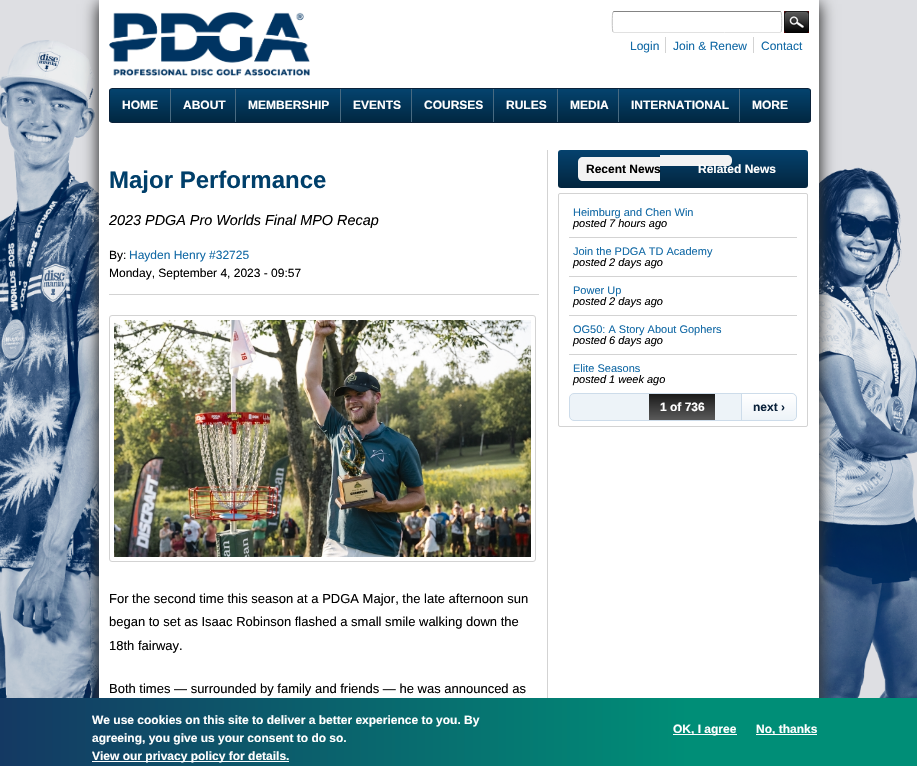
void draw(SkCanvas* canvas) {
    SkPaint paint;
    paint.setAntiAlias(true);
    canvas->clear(0xFFDEDFE3);
    canvas->drawImageRect(SkImages::DeferredFromEncodedData(SkData::MakeFromFileName("img1.png")), SkRect::MakeXYWH(0, 40, 917, 658), SkSamplingOptions());
    paint.setColor(0xFF333333);
    paint.setMaskFilter(SkMaskFilter::MakeBlur(kNormal_SkBlurStyle, 7.5f));
    canvas->drawRect(SkRect::MakeXYWH(98, 4, 712, 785), paint);
    paint.setMaskFilter(nullptr);
    paint.setMaskFilter(SkMaskFilter::MakeBlur(kNormal_SkBlurStyle, 7.5f));
    canvas->drawRect(SkRect::MakeXYWH(108, 4, 712, 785), paint);
    paint.setMaskFilter(nullptr);
    paint.setColor(0xFFFFFFFF);
    canvas->drawRect(SkRect::MakeXYWH(99, 0, 720, 698), paint);
    canvas->drawImageRect(SkImages::DeferredFromEncodedData(SkData::MakeFromFileName("img2.png")), SkRect::MakeXYWH(109, 12, 201, 64), SkSamplingOptions());
    paint.setStyle(SkPaint::kStroke_Style);
    paint.setStrokeWidth(1);
    paint.setColor(0xFF848484);
    canvas->drawPath(SkPathBuilder().moveTo(613, 12).lineTo(614, 11.5f).lineTo(780.5f, 11.5f).lineTo(781, 12).detach(), paint);
    paint.setColor(0xFFC1C1C1);
    canvas->drawPath(SkPathBuilder().moveTo(781, 12).cubicTo(782, 12.5f, 782, 31.5f, 781, 32).detach(), paint);
    paint.setColor(0xFFE1E1E1);
    canvas->drawPath(SkPathBuilder().moveTo(781, 32).lineTo(780.5f, 32.5f).lineTo(724.5f, 32.5f).lineTo(614, 32.5f).lineTo(613, 32).detach(), paint);
    paint.setColor(0xFFC1C1C1);
    canvas->drawPath(SkPathBuilder().moveTo(613, 32).cubicTo(612, 31.5f, 612, 12.5f, 613, 12).detach(), paint);
    canvas->drawImageRect(SkImages::DeferredFromEncodedData(SkData::MakeFromFileName("img3.png")), SkRect::MakeXYWH(784, 11, 25, 22), SkSamplingOptions());
    SkFont font1(fontMgr->matchFamilyStyle("Liberation Sans", SkFontStyle::Normal()), 12);
    font1.setSubpixel(true);
    paint.setStyle(SkPaint::kFill_Style);
    paint.setColor(0xFF136AA6);
    canvas->drawString("Login", 630, 50, font1, paint);
    paint.setColor(0xFFD3D3D3);
    canvas->drawRect(SkRect::MakeXYWH(665, 37, 1, 16), paint);
    paint.setColor(0xFF136AA6);
    canvas->drawString("Join & Renew", 673, 50, font1, paint);
    paint.setColor(0xFFD3D3D3);
    canvas->drawRect(SkRect::MakeXYWH(753, 37, 1, 16), paint);
    paint.setColor(0xFF136AA6);
    canvas->drawString("Contact", 761, 50, font1, paint);
    canvas->save();
    canvas->clipPath(SkPathBuilder().moveTo(112, 88).lineTo(808, 88).cubicTo(809.5f, 88, 811, 89.5f, 811, 91).lineTo(811, 120).cubicTo(811, 121.5f, 809.5f, 123, 808, 123).lineTo(112, 123).cubicTo(110.5f, 123, 109, 121.5f, 109, 120).lineTo(109, 91).cubicTo(109, 89.5f, 110.5f, 88, 112, 88).close().detach(), true);
    {
        const SkColor colors[] = {0xFF04436E, 0xFF012741};
        const float stops[] = {0, 1};
        const SkPoint ends[] = {{460, 89}, {460, 122}};
        paint.setShader(SkGradientShader::MakeLinear(ends, colors, stops, 2, SkTileMode::kClamp));
        paint.setAlpha(255);
    }
    canvas->drawRect(SkRect::MakeXYWH(109, 89, 702, 33), paint);
    canvas->restore();
    paint.setStyle(SkPaint::kStroke_Style);
    paint.setShader(nullptr);
    paint.setColor(0xFF0B223A);
    canvas->drawRoundRect(SkRect::MakeXYWH(109.5f, 88.5f, 701, 34), 2.5f, 2.5f, paint);
    paint.setStyle(SkPaint::kFill_Style);
    paint.setColor(0xFF486A81);
    canvas->drawRect(SkRect::MakeXYWH(170, 89, 1, 33), paint);
    SkFont font2(fontMgr->matchFamilyStyle("Liberation Sans", SkFontStyle::Bold()), 12);
    font2.setSubpixel(true);
    paint.setColor(0xFFFFFFFF);
    canvas->drawString("HOME", 122, 109, font2, paint);
    paint.setColor(0xFF486A81);
    canvas->drawRect(SkRect::MakeXYWH(235, 89, 1, 33), paint);
    paint.setColor(0xFFFFFFFF);
    canvas->drawString("ABOUT", 183, 109, font2, paint);
    paint.setColor(0xFF486A81);
    canvas->drawRect(SkRect::MakeXYWH(340, 89, 1, 33), paint);
    paint.setColor(0xFFFFFFFF);
    canvas->drawString("MEMBERSHIP", 248, 109, font2, paint);
    paint.setColor(0xFF486A81);
    canvas->drawRect(SkRect::MakeXYWH(411, 89, 1, 33), paint);
    paint.setColor(0xFFFFFFFF);
    canvas->drawString("EVENTS", 353, 109, font2, paint);
    paint.setColor(0xFF486A81);
    canvas->drawRect(SkRect::MakeXYWH(493, 89, 1, 33), paint);
    paint.setColor(0xFFFFFFFF);
    canvas->drawString("COURSES", 424, 109, font2, paint);
    paint.setColor(0xFF486A81);
    canvas->drawRect(SkRect::MakeXYWH(557, 89, 1, 33), paint);
    paint.setColor(0xFFFFFFFF);
    canvas->drawString("RULES", 506, 109, font2, paint);
    paint.setColor(0xFF486A81);
    canvas->drawRect(SkRect::MakeXYWH(618, 89, 1, 33), paint);
    paint.setColor(0xFFFFFFFF);
    canvas->drawString("MEDIA", 570, 109, font2, paint);
    paint.setColor(0xFF486A81);
    canvas->drawRect(SkRect::MakeXYWH(739, 89, 1, 33), paint);
    paint.setColor(0xFFFFFFFF);
    canvas->drawString("INTERNATIONAL", 631, 109, font2, paint);
    canvas->drawString("MORE", 752, 109, font2, paint);
    paint.setColor(0xFFD3D3D3);
    canvas->drawRect(SkRect::MakeXYWH(547, 150, 1, 548), paint);
    SkFont font3(fontMgr->matchFamilyStyle("Liberation Sans", SkFontStyle::Bold()), 24);
    font3.setSubpixel(true);
    paint.setColor(0xFF003F6A);
    canvas->drawString("Major Performance", 109, 188, font3, paint);
    SkFont font4(fontMgr->matchFamilyStyle("Liberation Sans", SkFontStyle::Italic()), 14.4f);
    font4.setSubpixel(true);
    paint.setColor(0xFF000000);
    canvas->drawString("2023 PDGA Pro Worlds Final MPO Recap", 109, 225, font4, paint);
    canvas->drawString("By:", 109, 259, font1, paint);
    paint.setColor(0xFF136AA6);
    canvas->drawString("Hayden Henry #32725", 129, 259, font1, paint);
    paint.setColor(0xFF000000);
    canvas->drawString("Monday, September 4, 2023 - 09:57", 109, 277, font1, paint);
    paint.setColor(0xFFD3D3D3);
    canvas->drawRect(SkRect::MakeXYWH(109, 294, 430, 1), paint);
    paint.setStyle(SkPaint::kStroke_Style);
    canvas->drawRoundRect(SkRect::MakeXYWH(109.5f, 315.5f, 426, 246), 2.5f, 2.5f, paint);
    canvas->drawImageRect(SkImages::DeferredFromEncodedData(SkData::MakeFromFileName("img4.png")), SkRect::MakeXYWH(114, 320, 417, 237), SkSamplingOptions());
    SkFont font5(fontMgr->matchFamilyStyle("Liberation Sans", SkFontStyle::Normal()), 13);
    font5.setSubpixel(true);
    paint.setStyle(SkPaint::kFill_Style);
    paint.setColor(0xFF000000);
    canvas->drawString("For the second time this season at a PDGA Major, the late afternoon sun", 109, 603, font5, paint);
    canvas->drawString("began to set as Isaac Robinson flashed a small smile walking down the", 109, 626, font5, paint);
    canvas->drawString("18th fairway.", 109, 650, font5, paint);
    canvas->drawString("Both times — surrounded by family and friends — he was announced as", 109, 693, font5, paint);
    {
        const SkColor colors[] = {0xFF05426E, 0xFF03253E};
        const float stops[] = {0, 1};
        const SkPoint ends[] = {{683, 150}, {683, 188}};
        paint.setShader(SkGradientShader::MakeLinear(ends, colors, stops, 2, SkTileMode::kClamp));
        paint.setAlpha(255);
    }
    canvas->drawRoundRect(SkRect::MakeXYWH(558, 150, 250, 38), 3, 3, paint);
    paint.setShader(nullptr);
    paint.setColor(0xFFF3F3F3);
    canvas->drawPath(SkPathBuilder().moveTo(583, 157).lineTo(660, 157).lineTo(660, 181).lineTo(583, 181).cubicTo(580, 181, 578, 179, 578, 176).lineTo(578, 162).cubicTo(578, 159, 580, 157, 583, 157).close().detach(), paint);
    paint.setColor(0xFF000000);
    canvas->drawString("Recent News", 586, 173, font2, paint);
    paint.setColor(0xFFF3F3F3);
    canvas->drawPath(SkPathBuilder().moveTo(660, 155).lineTo(727, 155).cubicTo(730, 155, 732, 157, 732, 160).lineTo(732, 161).cubicTo(732, 164, 730, 166, 727, 166).lineTo(660, 166).close().detach(), paint);
    paint.setColor(0xFFFFFFFF);
    canvas->drawString("Related News", 698, 173, font2, paint);
    paint.setStyle(SkPaint::kStroke_Style);
    paint.setColor(0xFFD3D3D3);
    canvas->drawRoundRect(SkRect::MakeXYWH(558.5f, 193.5f, 249, 233), 1.5f, 1.5f, paint);
    paint.setStyle(SkPaint::kFill_Style);
    canvas->drawRect(SkRect::MakeXYWH(569, 237, 228, 1), paint);
    SkFont font6(fontMgr->matchFamilyStyle("Liberation Sans", SkFontStyle::Normal()), 11);
    font6.setSubpixel(true);
    paint.setColor(0xFF136AA6);
    canvas->drawString("Heimburg and Chen Win", 573, 216, font6, paint);
    SkFont font7(fontMgr->matchFamilyStyle("Liberation Sans", SkFontStyle::Italic()), 11);
    font7.setSubpixel(true);
    paint.setColor(0xFF000000);
    canvas->drawString("posted 7 hours ago", 573, 227, font7, paint);
    paint.setColor(0xFFD3D3D3);
    canvas->drawRect(SkRect::MakeXYWH(569, 276, 228, 1), paint);
    paint.setColor(0xFF136AA6);
    canvas->drawString("Join the PDGA TD Academy", 573, 255, font6, paint);
    paint.setColor(0xFF000000);
    canvas->drawString("posted 2 days ago", 573, 266, font7, paint);
    paint.setColor(0xFFD3D3D3);
    canvas->drawRect(SkRect::MakeXYWH(569, 315, 228, 1), paint);
    paint.setColor(0xFF136AA6);
    canvas->drawString("Power Up", 573, 294, font6, paint);
    paint.setColor(0xFF000000);
    canvas->drawString("posted 2 days ago", 573, 305, font7, paint);
    paint.setColor(0xFFD3D3D3);
    canvas->drawRect(SkRect::MakeXYWH(569, 354, 228, 1), paint);
    paint.setColor(0xFF136AA6);
    canvas->drawString("OG50: A Story About Gophers", 573, 333, font6, paint);
    paint.setColor(0xFF000000);
    canvas->drawString("posted 6 days ago", 573, 344, font7, paint);
    paint.setColor(0xFF136AA6);
    canvas->drawString("Elite Seasons", 573, 372, font6, paint);
    paint.setColor(0xFF000000);
    canvas->drawString("posted 1 week ago", 573, 383, font7, paint);
    paint.setColor(0xFFEDF3F8);
    canvas->drawRoundRect(SkRect::MakeXYWH(569.5f, 393.5f, 227, 27), 4.5f, 4.5f, paint);
    paint.setStyle(SkPaint::kStroke_Style);
    paint.setColor(0xFFCDDCEA);
    canvas->drawRoundRect(SkRect::MakeXYWH(569.5f, 393.5f, 227, 27), 4.5f, 4.5f, paint);
    paint.setStyle(SkPaint::kFill_Style);
    {
        const SkColor colors[] = {0xFF1A1A1A, 0xFF5A5A5A};
        const float stops[] = {0, 1};
        const SkPoint ends[] = {{649, 394}, {649, 420}};
        paint.setShader(SkGradientShader::MakeLinear(ends, colors, stops, 2, SkTileMode::kClamp));
        paint.setAlpha(255);
    }
    canvas->drawRect(SkRect::MakeXYWH(649, 394, 66, 26), paint);
    paint.setShader(nullptr);
    paint.setColor(0xFFFFFFFF);
    canvas->drawString("1 of 736", 660, 411, font2, paint);
    {
        const SkColor colors[] = {0xFFFFFFFF, 0xFFEDF3F8};
        const float stops[] = {0, 1};
        const SkPoint ends[] = {{742, 394}, {742, 420}};
        paint.setShader(SkGradientShader::MakeLinear(ends, colors, stops, 2, SkTileMode::kClamp));
        paint.setAlpha(255);
    }
    canvas->drawPath(SkPathBuilder().moveTo(741, 394).lineTo(791, 394).cubicTo(794, 394, 796, 396, 796, 399).lineTo(796, 415).cubicTo(796, 418, 794, 420, 791, 420).lineTo(741, 420).close().detach(), paint);
    paint.setShader(nullptr);
    paint.setColor(0xFFCDDCEA);
    canvas->drawRect(SkRect::MakeXYWH(741, 394, 1, 26), paint);
    paint.setColor(0xFF0B223A);
    canvas->drawString("next ›", 753, 411, font2, paint);
    {
        const SkColor colors[] = {0xFF143963, 0xFF008E77};
        const float stops[] = {0, 0.75f};
        const SkPoint ends[] = {{0, 736}, {917, 736}};
        paint.setShader(SkGradientShader::MakeLinear(ends, colors, stops, 2, SkTileMode::kClamp));
        paint.setAlpha(255);
    }
    canvas->drawRect(SkRect::MakeXYWH(0, 698, 917, 68), paint);
    paint.setShader(nullptr);
    paint.setColor(0xFFFFFFFF);
    canvas->drawString("We use cookies on this site to deliver a better experience to you. By", 92, 724, font2, paint);
    canvas->drawString("agreeing, you give us your consent to do so.", 92, 742, font2, paint);
    canvas->drawRect(SkRect::MakeXYWH(92, 761, 197, 1), paint);
    canvas->drawString("View our privacy policy for details.", 92, 760, font2, paint);
    canvas->drawRect(SkRect::MakeXYWH(673, 734, 64, 1), paint);
    canvas->drawString("OK, I agree", 673, 733, font2, paint);
    canvas->drawRect(SkRect::MakeXYWH(756, 734, 61, 1), paint);
    canvas->drawString("No, thanks", 756, 733, font2, paint);
}
